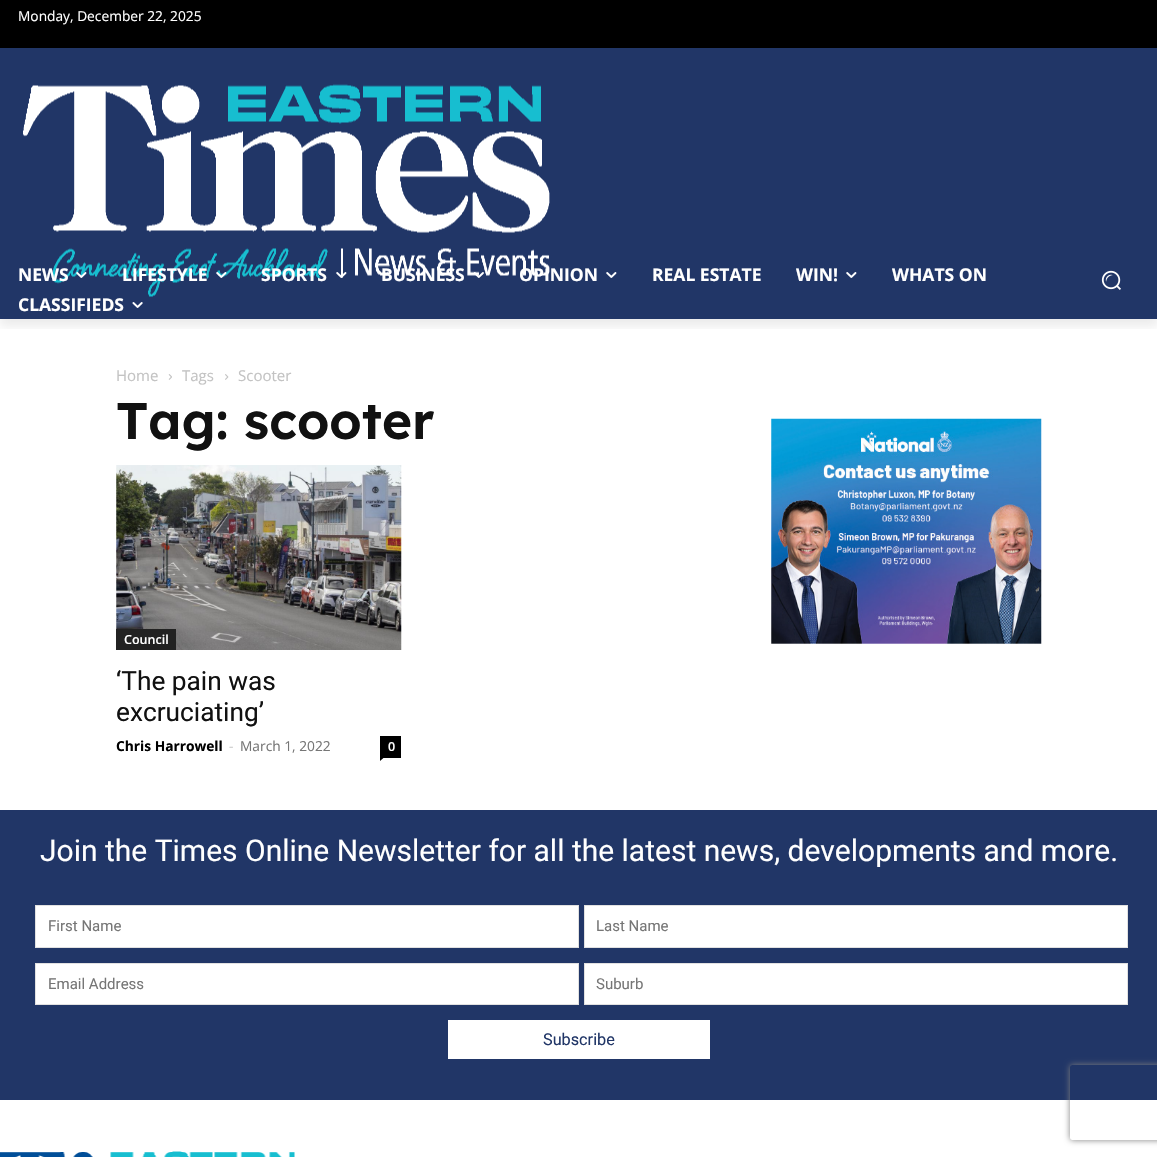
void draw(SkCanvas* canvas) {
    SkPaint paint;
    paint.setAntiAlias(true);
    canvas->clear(0xFFFFFFFF);
    paint.setColor(0xFF213667);
    canvas->drawRect(SkRect::MakeXYWH(0, 48, 1157, 271), paint);
    paint.setColor(0xFF000000);
    canvas->drawRect(SkRect::MakeXYWH(0, 0, 1157, 48), paint);
    canvas->drawImageRect(SkImages::DeferredFromEncodedData(SkData::MakeFromFileName("img1.png")), SkRect::MakeXYWH(23, 84, 527, 213), SkSamplingOptions());
    canvas->save();
    canvas->clipRect(SkRect::MakeXYWH(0, 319, 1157, 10));
    paint.setColor(0x14000000);
    paint.setMaskFilter(SkMaskFilter::MakeBlur(kNormal_SkBlurStyle, 5));
    canvas->drawRect(SkRect::MakeXYWH(0, 8, 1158, 318), paint);
    paint.setMaskFilter(nullptr);
    canvas->restore();
    SkFont font1(fontMgr->matchFamilyStyle("Open Sans", SkFontStyle::Normal()), 13.75f);
    font1.setSubpixel(true);
    paint.setColor(0xFFFFFFFF);
    canvas->drawString("Monday, December 22, 2025", 18, 21, font1, paint);
    SkFont font2(fontMgr->matchFamilyStyle("Open Sans", SkFontStyle::Bold()), 17.5f);
    font2.setSubpixel(true);
    canvas->drawString("NEWS", 18, 281, font2, paint);
    canvas->drawImageRect(SkImages::DeferredFromEncodedData(SkData::MakeFromFileName("img2.png")), SkRect::MakeXYWH(76, 272, 11, 6), SkSamplingOptions());
    canvas->drawString("LIFESTYLE", 122, 281, font2, paint);
    canvas->drawImageRect(SkImages::DeferredFromEncodedData(SkData::MakeFromFileName("img3.png")), SkRect::MakeXYWH(216, 272, 11, 6), SkSamplingOptions());
    canvas->drawString("SPORTS", 261, 281, font2, paint);
    canvas->drawImageRect(SkImages::DeferredFromEncodedData(SkData::MakeFromFileName("img4.png")), SkRect::MakeXYWH(336, 272, 11, 6), SkSamplingOptions());
    canvas->drawString("BUSINESS", 381, 281, font2, paint);
    canvas->drawImageRect(SkImages::DeferredFromEncodedData(SkData::MakeFromFileName("img5.png")), SkRect::MakeXYWH(473, 272, 11, 6), SkSamplingOptions());
    canvas->drawString("OPINION", 519, 281, font2, paint);
    canvas->drawImageRect(SkImages::DeferredFromEncodedData(SkData::MakeFromFileName("img6.png")), SkRect::MakeXYWH(606, 272, 11, 6), SkSamplingOptions());
    canvas->drawString("REAL ESTATE", 652, 281, font2, paint);
    canvas->drawString("WIN!", 796, 281, font2, paint);
    canvas->drawImageRect(SkImages::DeferredFromEncodedData(SkData::MakeFromFileName("img6.png")), SkRect::MakeXYWH(846, 272, 11, 6), SkSamplingOptions());
    canvas->drawString("WHATS ON", 892, 281, font2, paint);
    canvas->drawString("CLASSIFIEDS", 18, 311, font2, paint);
    canvas->drawImageRect(SkImages::DeferredFromEncodedData(SkData::MakeFromFileName("img7.png")), SkRect::MakeXYWH(132, 302, 11, 6), SkSamplingOptions());
    canvas->drawImageRect(SkImages::DeferredFromEncodedData(SkData::MakeFromFileName("img8.png")), SkRect::MakeXYWH(1101, 270, 20, 20), SkSamplingOptions());
    SkFont font3(fontMgr->matchFamilyStyle("Open Sans", SkFontStyle::Normal()), 15);
    font3.setSubpixel(true);
    paint.setColor(0xFFC3C3C3);
    canvas->drawString("Home", 116, 381, font3, paint);
    canvas->drawImageRect(SkImages::DeferredFromEncodedData(SkData::MakeFromFileName("img9.png")), SkRect::MakeXYWH(168, 374, 4, 6), SkSamplingOptions());
    canvas->drawString("Tags", 182, 381, font3, paint);
    canvas->drawImageRect(SkImages::DeferredFromEncodedData(SkData::MakeFromFileName("img10.png")), SkRect::MakeXYWH(225, 374, 4, 6), SkSamplingOptions());
    canvas->drawString("Scooter", 238, 381, font3, paint);
    SkFont font4(fontMgr->matchFamilyStyle("Lexend", SkFontStyle(600, SkFontStyle::kNormal_Width, SkFontStyle::kUpright_Slant)), 51.25f);
    font4.setSubpixel(true);
    paint.setColor(0xFF111111);
    canvas->drawString("Tag: scooter", 116, 439, font4, paint);
    canvas->drawImageRect(SkImages::DeferredFromEncodedData(SkData::MakeFromFileName("img11.png")), SkRect::MakeXYWH(116, 465, 286, 185), SkSamplingOptions());
    paint.setColor(0xFF222222);
    canvas->drawRect(SkRect::MakeXYWH(116, 629, 60, 21), paint);
    SkFont font5(fontMgr->matchFamilyStyle("Open Sans", SkFontStyle(600, SkFontStyle::kNormal_Width, SkFontStyle::kUpright_Slant)), 12.5f);
    font5.setSubpixel(true);
    paint.setColor(0xFFFFFFFF);
    canvas->drawString("Council", 124, 644, font5, paint);
    SkFont font6(fontMgr->matchFamilyStyle("Roboto", SkFontStyle::Normal()), 26.25f);
    font6.setSubpixel(true);
    paint.setColor(0xFF111111);
    canvas->drawString("‘The pain was", 116, 690, font6, paint);
    canvas->drawString("excruciating’", 116, 721, font6, paint);
    SkFont font7(fontMgr->matchFamilyStyle("Open Sans", SkFontStyle::Bold()), 13.75f);
    font7.setSubpixel(true);
    paint.setColor(0xFF000000);
    canvas->drawString("Chris Harrowell", 116, 751, font7, paint);
    paint.setColor(0xFFCCCCCC);
    canvas->drawString("-", 229, 751, font1, paint);
    paint.setColor(0xFF767676);
    canvas->drawString("March 1, 2022", 240, 751, font1, paint);
    paint.setColor(0xFF000000);
    canvas->drawRect(SkRect::MakeXYWH(380, 736, 21, 22), paint);
    paint.setColor(0xFFFFFFFF);
    canvas->drawString("0", 388, 751, font5, paint);
    paint.setColor(0xFF000000);
    canvas->drawPath(SkPathBuilder().moveTo(380, 757.5f).lineTo(384, 757.5f).lineTo(380, 761).close().detach(), paint);
    canvas->drawImageRect(SkImages::DeferredFromEncodedData(SkData::MakeFromFileName("img12.png")), SkRect::MakeXYWH(771, 418, 271, 226), SkSamplingOptions());
    paint.setColor(0xFF213667);
    canvas->drawRect(SkRect::MakeXYWH(0, 810, 1157, 290), paint);
    SkFont font8(fontMgr->matchFamilyStyle("Roboto", SkFontStyle::Normal()), 30);
    font8.setSubpixel(true);
    paint.setColor(0xFFFFFFFF);
    canvas->drawString("Join the Times Online Newsletter for all the latest news, developments and more.", 40, 861, font8, paint);
    canvas->drawRect(SkRect::MakeXYWH(35.5f, 905.5f, 543, 42), paint);
    paint.setStyle(SkPaint::kStroke_Style);
    paint.setStrokeWidth(1);
    paint.setColor(0xFFE1E1E1);
    canvas->drawRect(SkRect::MakeXYWH(35.5f, 905.5f, 543, 42), paint);
    SkFont font9(fontMgr->matchFamilyStyle("Roboto", SkFontStyle::Normal()), 15);
    font9.setSubpixel(true);
    paint.setStyle(SkPaint::kFill_Style);
    paint.setColor(0xFF767676);
    canvas->drawString("First Name", 48, 931, font9, paint);
    paint.setColor(0xFFFFFFFF);
    canvas->drawRect(SkRect::MakeXYWH(584.5f, 905.5f, 543, 42), paint);
    paint.setStyle(SkPaint::kStroke_Style);
    paint.setColor(0xFFE1E1E1);
    canvas->drawRect(SkRect::MakeXYWH(584.5f, 905.5f, 543, 42), paint);
    paint.setStyle(SkPaint::kFill_Style);
    paint.setColor(0xFF767676);
    canvas->drawString("Last Name", 596, 931, font9, paint);
    paint.setColor(0xFFFFFFFF);
    canvas->drawRect(SkRect::MakeXYWH(35.5f, 963.5f, 543, 41), paint);
    paint.setStyle(SkPaint::kStroke_Style);
    paint.setColor(0xFFE1E1E1);
    canvas->drawRect(SkRect::MakeXYWH(35.5f, 963.5f, 543, 41), paint);
    paint.setStyle(SkPaint::kFill_Style);
    paint.setColor(0xFF767676);
    canvas->drawString("Email Address", 48, 989, font9, paint);
    paint.setColor(0xFFFFFFFF);
    canvas->drawRect(SkRect::MakeXYWH(584.5f, 963.5f, 543, 41), paint);
    paint.setStyle(SkPaint::kStroke_Style);
    paint.setColor(0xFFE1E1E1);
    canvas->drawRect(SkRect::MakeXYWH(584.5f, 963.5f, 543, 41), paint);
    paint.setStyle(SkPaint::kFill_Style);
    paint.setColor(0xFF767676);
    canvas->drawString("Suburb", 596, 989, font9, paint);
    paint.setColor(0xFFFFFFFF);
    canvas->drawRect(SkRect::MakeXYWH(448, 1020, 262, 39), paint);
    SkFont font10(fontMgr->matchFamilyStyle("Roboto", SkFontStyle::Normal()), 16.25f);
    font10.setSubpixel(true);
    paint.setColor(0xFF213667);
    canvas->drawString("Subscribe", 543, 1045, font10, paint);
    canvas->drawImageRect(SkImages::DeferredFromEncodedData(SkData::MakeFromFileName("img13.png")), SkRect::MakeXYWH(0, 1151, 295, 6), SkSamplingOptions());
    canvas->save();
    canvas->clipPath(SkPathBuilder(SkPathFillType::kEvenOdd).moveTo(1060, 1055).lineTo(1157, 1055).lineTo(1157, 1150).lineTo(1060, 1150).close().moveTo(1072.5f, 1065).lineTo(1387.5f, 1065).cubicTo(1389, 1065, 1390, 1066, 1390, 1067.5f).lineTo(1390, 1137.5f).cubicTo(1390, 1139, 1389, 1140, 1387.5f, 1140).lineTo(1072.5f, 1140).cubicTo(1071, 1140, 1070, 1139, 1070, 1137.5f).lineTo(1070, 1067.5f).cubicTo(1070, 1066, 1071, 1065, 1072.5f, 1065).close().detach(), true);
    paint.setColor(0xFF808080);
    paint.setMaskFilter(SkMaskFilter::MakeBlur(kNormal_SkBlurStyle, 3));
    canvas->drawRoundRect(SkRect::MakeXYWH(1070, 1065, 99, 75), 2.5f, 2.5f, paint);
    paint.setMaskFilter(nullptr);
    canvas->restore();
}
